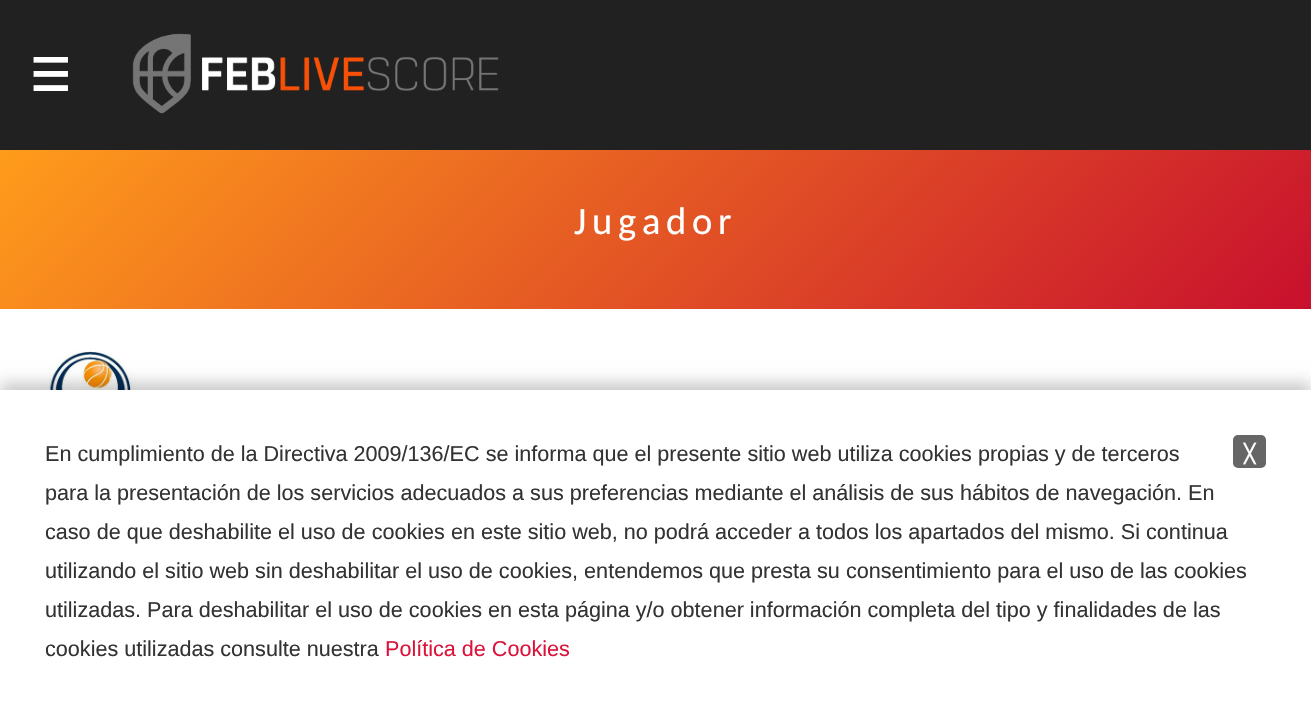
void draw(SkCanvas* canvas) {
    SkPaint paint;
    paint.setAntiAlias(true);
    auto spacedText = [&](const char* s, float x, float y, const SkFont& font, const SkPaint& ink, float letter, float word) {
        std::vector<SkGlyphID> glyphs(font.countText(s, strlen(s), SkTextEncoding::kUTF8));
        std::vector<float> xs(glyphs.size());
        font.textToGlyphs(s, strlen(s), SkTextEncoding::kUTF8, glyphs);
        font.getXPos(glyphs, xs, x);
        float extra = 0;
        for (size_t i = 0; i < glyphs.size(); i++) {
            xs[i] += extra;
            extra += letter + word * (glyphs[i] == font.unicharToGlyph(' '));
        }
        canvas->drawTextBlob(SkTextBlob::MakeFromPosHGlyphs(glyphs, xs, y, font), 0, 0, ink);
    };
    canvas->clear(0xFF212121);
    SkFont font1(fontMgr->matchFamilyStyle("DejaVu Sans", SkFontStyle::Bold()), 45);
    font1.setSubpixel(true);
    paint.setColor(0xFFFFFFFF);
    canvas->drawString("☰", 30, 91, font1, paint);
    canvas->drawImageRect(SkImages::DeferredFromEncodedData(SkData::MakeFromFileName("img1.png")), SkRect::MakeXYWH(132, 33, 367, 81), SkSamplingOptions());
    canvas->drawRect(SkRect::MakeXYWH(0, 309, 1311, 81), paint);
    {
        const SkColor colors[] = {0xFFFF9C1B, 0xFFC8102E};
        const float stops[] = {0, 1};
        const SkPoint ends[] = {{288, -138}, {1023, 597}};
        paint.setShader(SkGradientShader::MakeLinear(ends, colors, stops, 2, SkTileMode::kClamp));
        paint.setAlpha(255);
    }
    canvas->drawRect(SkRect::MakeXYWH(0, 150, 1311, 159), paint);
    SkFont font2(fontMgr->matchFamilyStyle("Carlito", SkFontStyle::Normal()), 38.5f);
    font2.setSubpixel(true);
    paint.setShader(nullptr);
    paint.setColor(0xFFFFFFFF);
    spacedText("Jugador", 574, 234, font2, paint, 5.75f, 0);
    canvas->drawImageRect(SkImages::DeferredFromEncodedData(SkData::MakeFromFileName("img2.png")), SkRect::MakeXYWH(37, 351, 107, 39), SkSamplingOptions());
    paint.setColor(0x38000000);
    paint.setMaskFilter(SkMaskFilter::MakeBlur(kNormal_SkBlurStyle, 7.5f));
    canvas->drawRect(SkRect::MakeXYWH(0, 383, 1311, 324), paint);
    paint.setMaskFilter(nullptr);
    paint.setColor(0xFFFFFFFF);
    canvas->drawRect(SkRect::MakeXYWH(0, 390, 1311, 323), paint);
    SkFont font3(fontMgr->matchFamilyStyle("Liberation Sans", SkFontStyle::Normal()), 21.6f);
    font3.setSubpixel(true);
    paint.setColor(0xFF333333);
    canvas->drawString("En cumplimiento de la Directiva 2009/136/EC se informa que el presente sitio web utiliza cookies propias y de terceros", 45, 461, font3, paint);
    paint.setColor(0xFF666666);
    canvas->drawRoundRect(SkRect::MakeXYWH(1233, 435, 33, 33), 5, 5, paint);
    SkFont font4(fontMgr->matchFamilyStyle("DejaVu Sans", SkFontStyle::Bold()), 18);
    font4.setSubpixel(true);
    paint.setColor(0xFFFFFFFF);
    canvas->drawString("╳", 1244, 460, font4, paint);
    paint.setColor(0xFF333333);
    canvas->drawString("para la presentación de los servicios adecuados a sus preferencias mediante el análisis de sus hábitos de navegación. En", 45, 500, font3, paint);
    canvas->drawString("caso de que deshabilite el uso de cookies en este sitio web, no podrá acceder a todos los apartados del mismo. Si continua", 45, 539, font3, paint);
    canvas->drawString("utilizando el sitio web sin deshabilitar el uso de cookies, entendemos que presta su consentimiento para el uso de las cookies", 45, 578, font3, paint);
    canvas->drawString("utilizadas. Para deshabilitar el uso de cookies en esta página y/o obtener información completa del tipo y finalidades de las", 45, 617, font3, paint);
    canvas->drawString("cookies utilizadas consulte nuestra", 45, 656, font3, paint);
    paint.setColor(0xFFDC143C);
    canvas->drawString("Política de Cookies", 385, 656, font3, paint);
}
